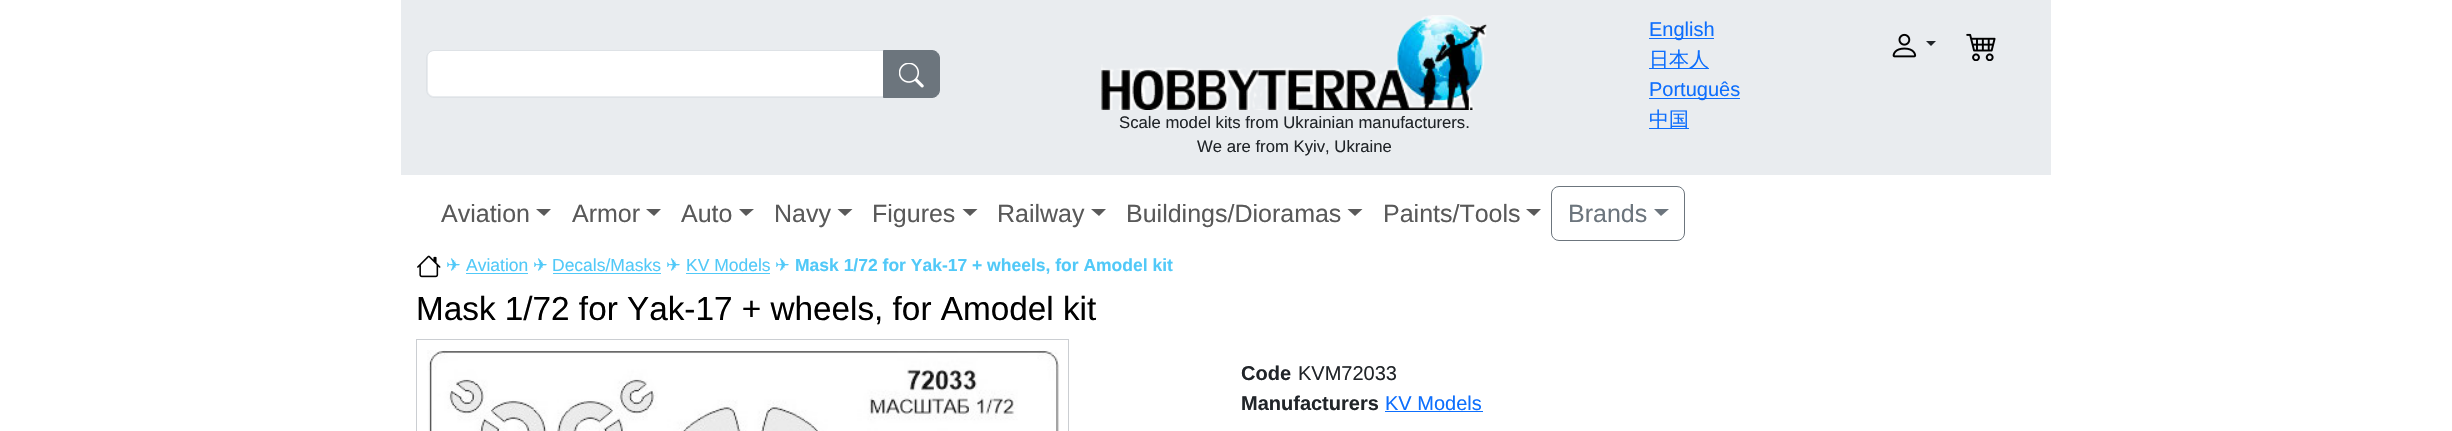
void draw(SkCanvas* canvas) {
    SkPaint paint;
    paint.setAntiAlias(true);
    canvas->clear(0xFFFFFFFF);
    paint.setColor(0xFFE9ECEF);
    canvas->drawRect(SkRect::MakeXYWH(401, 0, 1650, 175), paint);
    paint.setColor(0xFF0D6EFD);
    canvas->drawRect(SkRect::MakeXYWH(1649, 38, 65, 1), paint);
    SkFont font1(fontMgr->matchFamilyStyle("Liberation Sans", SkFontStyle::Normal()), 20);
    font1.setSubpixel(true);
    canvas->drawString("English", 1649, 36, font1, paint);
    canvas->drawRect(SkRect::MakeXYWH(1649, 68, 60, 1), paint);
    SkFont font2(fontMgr->matchFamilyStyle("WenQuanYi Zen Hei", SkFontStyle(500, SkFontStyle::kNormal_Width, SkFontStyle::kUpright_Slant)), 20);
    font2.setSubpixel(true);
    canvas->drawString("日本人", 1649, 66, font2, paint);
    canvas->drawRect(SkRect::MakeXYWH(1649, 98, 91, 1), paint);
    canvas->drawString("Português", 1649, 96, font1, paint);
    canvas->drawRect(SkRect::MakeXYWH(1649, 128, 40, 1), paint);
    canvas->drawString("中国", 1649, 126, font2, paint);
    canvas->drawImageRect(SkImages::DeferredFromEncodedData(SkData::MakeFromFileName("img1.png")), SkRect::MakeXYWH(1892, 33, 25, 25), SkSamplingOptions());
    paint.setColor(0xFF212529);
    canvas->drawPath(SkPathBuilder().moveTo(1926, 41).lineTo(1936, 41).lineTo(1931, 46).close().detach(), paint);
    canvas->drawImageRect(SkImages::DeferredFromEncodedData(SkData::MakeFromFileName("img2.png")), SkRect::MakeXYWH(1966, 33, 30, 28), SkSamplingOptions());
    paint.setColor(0xFFFFFFFF);
    canvas->drawPath(SkPathBuilder().moveTo(434, 51).lineTo(883, 51).lineTo(883, 96).lineTo(434, 96).cubicTo(430.5f, 96, 428, 93.5f, 428, 90).lineTo(428, 57).cubicTo(428, 53.5f, 430.5f, 51, 434, 51).close().detach(), paint);
    paint.setStyle(SkPaint::kStroke_Style);
    paint.setStrokeWidth(1);
    paint.setColor(0xFFDEE2E6);
    canvas->drawPath(SkPathBuilder().moveTo(434, 50.5f).lineTo(883.5f, 50.5f).lineTo(883.5f, 97.5f).lineTo(434, 97.5f).cubicTo(430, 97.5f, 426.5f, 94, 426.5f, 90).lineTo(426.5f, 58).cubicTo(426.5f, 54, 430, 50.5f, 434, 50.5f).close().detach(), paint);
    paint.setStyle(SkPaint::kFill_Style);
    paint.setColor(0xFF6C757D);
    canvas->drawPath(SkPathBuilder().moveTo(883.5f, 50.5f).lineTo(932, 50.5f).cubicTo(936, 50.5f, 939.5f, 54, 939.5f, 58).lineTo(939.5f, 90).cubicTo(939.5f, 94, 936, 97.5f, 932, 97.5f).lineTo(883.5f, 97.5f).close().detach(), paint);
    paint.setStyle(SkPaint::kStroke_Style);
    canvas->drawPath(SkPathBuilder().moveTo(883.5f, 50.5f).lineTo(932, 50.5f).cubicTo(936, 50.5f, 939.5f, 54, 939.5f, 58).lineTo(939.5f, 90).cubicTo(939.5f, 94, 936, 97.5f, 932, 97.5f).lineTo(883.5f, 97.5f).close().detach(), paint);
    canvas->drawImageRect(SkImages::DeferredFromEncodedData(SkData::MakeFromFileName("img3.png")), SkRect::MakeXYWH(899, 63, 25, 25), SkSamplingOptions());
    canvas->drawImageRect(SkImages::DeferredFromEncodedData(SkData::MakeFromFileName("img4.png")), SkRect::MakeXYWH(1101, 15, 386, 95), SkSamplingOptions());
    SkFont font3(fontMgr->matchFamilyStyle("Liberation Sans", SkFontStyle::Normal()), 16.7f);
    font3.setSubpixel(true);
    paint.setStyle(SkPaint::kFill_Style);
    paint.setColor(0xFF212529);
    canvas->drawString("Scale model kits from Ukrainian manufacturers.", 1119, 128, font3, paint);
    canvas->drawString("We are from Kyiv, Ukraine", 1197, 152, font3, paint);
    SkFont font4(fontMgr->matchFamilyStyle("Liberation Sans", SkFontStyle::Normal()), 25);
    font4.setSubpixel(true);
    paint.setColor(0xFF595959);
    canvas->drawString("Aviation", 441, 222, font4, paint);
    canvas->drawPath(SkPathBuilder().moveTo(536, 209).lineTo(551, 209).lineTo(544, 216).close().detach(), paint);
    canvas->drawString("Armor", 572, 222, font4, paint);
    canvas->drawPath(SkPathBuilder().moveTo(646, 209).lineTo(661, 209).lineTo(654, 216).close().detach(), paint);
    canvas->drawString("Auto", 681, 222, font4, paint);
    canvas->drawPath(SkPathBuilder().moveTo(739, 209).lineTo(754, 209).lineTo(746, 216).close().detach(), paint);
    canvas->drawString("Navy", 774, 222, font4, paint);
    canvas->drawPath(SkPathBuilder().moveTo(837.5f, 209).lineTo(852.5f, 209).lineTo(845, 216).close().detach(), paint);
    canvas->drawString("Figures", 872, 222, font4, paint);
    canvas->drawPath(SkPathBuilder().moveTo(962.5f, 209).lineTo(977.5f, 209).lineTo(970, 216).close().detach(), paint);
    canvas->drawString("Railway", 997, 222, font4, paint);
    canvas->drawPath(SkPathBuilder().moveTo(1091, 209).lineTo(1106, 209).lineTo(1099, 216).close().detach(), paint);
    canvas->drawString("Buildings/Dioramas", 1126, 222, font4, paint);
    canvas->drawPath(SkPathBuilder().moveTo(1347.5f, 209).lineTo(1362.5f, 209).lineTo(1355, 216).close().detach(), paint);
    canvas->drawString("Paints/Tools", 1383, 222, font4, paint);
    canvas->drawPath(SkPathBuilder().moveTo(1526, 209).lineTo(1541, 209).lineTo(1534, 216).close().detach(), paint);
    paint.setStyle(SkPaint::kStroke_Style);
    paint.setColor(0xFF6C757D);
    canvas->drawRoundRect(SkRect::MakeXYWH(1551.5f, 186.5f, 133, 54), 7.5f, 7.5f, paint);
    paint.setStyle(SkPaint::kFill_Style);
    canvas->drawString("Brands", 1568, 222, font4, paint);
    canvas->drawPath(SkPathBuilder().moveTo(1654, 209).lineTo(1669, 209).lineTo(1661, 216).close().detach(), paint);
    canvas->drawImageRect(SkImages::DeferredFromEncodedData(SkData::MakeFromFileName("img5.png")), SkRect::MakeXYWH(417, 255, 24, 23), SkSamplingOptions());
    SkFont font5(fontMgr->matchFamilyStyle("DejaVu Sans", SkFontStyle::Normal()), 17.5f);
    font5.setSubpixel(true);
    paint.setColor(0xFF51C9F8);
    canvas->drawString("✈", 446, 271, font5, paint);
    SkFont font6(fontMgr->matchFamilyStyle("Liberation Sans", SkFontStyle::Normal()), 17.5f);
    font6.setSubpixel(true);
    canvas->drawString("Aviation", 466, 271, font6, paint);
    canvas->drawRect(SkRect::MakeXYWH(466, 273, 62, 1), paint);
    canvas->drawString("✈", 533, 271, font5, paint);
    canvas->drawString("Decals/Masks", 552, 271, font6, paint);
    canvas->drawRect(SkRect::MakeXYWH(553, 273, 108, 1), paint);
    canvas->drawString("✈", 666, 271, font5, paint);
    canvas->drawString("KV Models", 686, 271, font6, paint);
    canvas->drawRect(SkRect::MakeXYWH(686, 273, 84, 1), paint);
    canvas->drawString("✈", 775, 271, font5, paint);
    SkFont font7(fontMgr->matchFamilyStyle("Liberation Sans", SkFontStyle::Bold()), 17.5f);
    font7.setSubpixel(true);
    canvas->drawString("Mask 1/72 for Yak-17 + wheels, for Amodel kit", 795, 271, font7, paint);
    SkFont font8(fontMgr->matchFamilyStyle("Liberation Sans", SkFontStyle::Normal()), 33.3f);
    font8.setSubpixel(true);
    paint.setColor(0xFF000000);
    canvas->drawString("Mask 1/72 for Yak-17 + wheels, for Amodel kit", 416, 320, font8, paint);
    paint.setStyle(SkPaint::kStroke_Style);
    paint.setColor(0xFFCBCED2);
    canvas->drawRect(SkRect::MakeXYWH(416.5f, 339.5f, 652, 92), paint);
    canvas->drawImageRect(SkImages::DeferredFromEncodedData(SkData::MakeFromFileName("img6.png")), SkRect::MakeXYWH(427, 350, 633, 81), SkSamplingOptions());
    SkFont font9(fontMgr->matchFamilyStyle("Liberation Sans", SkFontStyle::Bold()), 20);
    font9.setSubpixel(true);
    paint.setStyle(SkPaint::kFill_Style);
    paint.setColor(0xFF212529);
    canvas->drawString("Code", 1241, 380, font9, paint);
    canvas->drawString("KVM72033", 1298, 380, font1, paint);
    canvas->drawString("Manufacturers", 1241, 410, font9, paint);
    paint.setColor(0xFF0D6EFD);
    canvas->drawString("KV Models", 1385, 410, font1, paint);
    canvas->drawRect(SkRect::MakeXYWH(1385, 411, 98, 1), paint);
}
